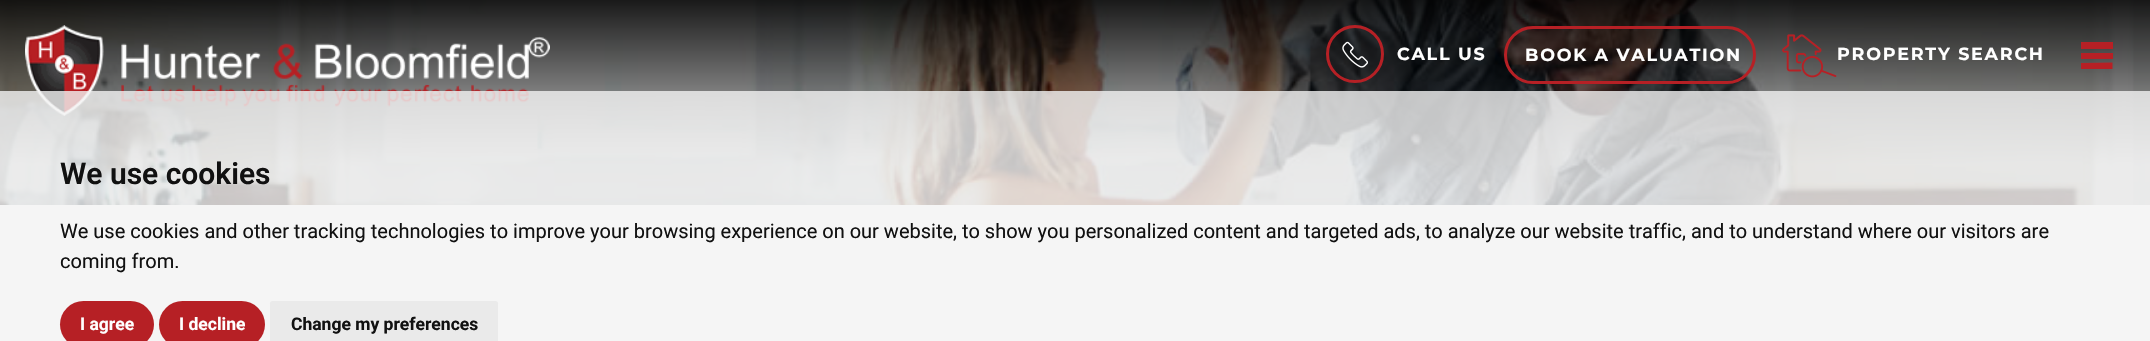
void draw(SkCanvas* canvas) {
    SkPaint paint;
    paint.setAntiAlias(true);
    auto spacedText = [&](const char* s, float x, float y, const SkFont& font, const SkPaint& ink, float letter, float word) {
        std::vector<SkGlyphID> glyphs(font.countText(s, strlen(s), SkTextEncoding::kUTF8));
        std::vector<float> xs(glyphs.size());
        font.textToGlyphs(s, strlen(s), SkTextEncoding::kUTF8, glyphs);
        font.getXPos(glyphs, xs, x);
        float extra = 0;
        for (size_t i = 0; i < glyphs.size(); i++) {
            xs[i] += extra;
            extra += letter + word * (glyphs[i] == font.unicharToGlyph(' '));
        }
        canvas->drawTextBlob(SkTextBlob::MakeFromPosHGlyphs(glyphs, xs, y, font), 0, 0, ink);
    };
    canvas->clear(0xFFFFFFFF);
    canvas->drawImageRect(SkImages::DeferredFromEncodedData(SkData::MakeFromFileName("img1.png")), SkRect::MakeXYWH(0, 0, 2150, 205), SkSamplingOptions());
    canvas->drawImageRect(SkImages::DeferredFromEncodedData(SkData::MakeFromFileName("img2.png")), SkRect::MakeXYWH(25, 25, 525, 91), SkSamplingOptions());
    canvas->drawImageRect(SkImages::DeferredFromEncodedData(SkData::MakeFromFileName("img3.png")), SkRect::MakeXYWH(1782, 34, 55, 44), SkSamplingOptions());
    paint.setColor(0xFFB62025);
    canvas->drawRect(SkRect::MakeXYWH(2081, 42, 32, 7), paint);
    paint.setStyle(SkPaint::kStroke_Style);
    paint.setStrokeWidth(3);
    canvas->drawCircle(1355, 54, 27.5f, paint);
    canvas->drawImageRect(SkImages::DeferredFromEncodedData(SkData::MakeFromFileName("img4.png")), SkRect::MakeXYWH(1342, 41, 26, 27), SkSamplingOptions());
    SkFont font1(fontMgr->matchFamilyStyle("Montserrat", SkFontStyle::Bold()), 17.5f);
    font1.setSubpixel(true);
    paint.setStyle(SkPaint::kFill_Style);
    paint.setColor(0xFFFFFFFF);
    spacedText("CALL US", 1397, 60, font1, paint, 1.75f, 0);
    paint.setStyle(SkPaint::kStroke_Style);
    paint.setColor(0xFFB62025);
    canvas->drawRoundRect(SkRect::MakeXYWH(1505.5f, 27.5f, 249, 55), 27.5f, 27.5f, paint);
    paint.setStyle(SkPaint::kFill_Style);
    paint.setColor(0xFFFFFFFF);
    spacedText("BOOK A VALUATION", 1525, 61, font1, paint, 1.75f, 0);
    spacedText("PROPERTY SEARCH", 1837, 60, font1, paint, 1.75f, 0);
    paint.setColor(0xFFB62025);
    canvas->drawRect(SkRect::MakeXYWH(2081, 53, 32, 6), paint);
    canvas->drawPath(SkPathBuilder().moveTo(2112.5f, 69).lineTo(2081, 69).lineTo(2081, 63).lineTo(2112.5f, 62.5f).close().detach(), paint);
    paint.setColor(0xCCF2F2F2);
    canvas->drawRect(SkRect::MakeXYWH(0, 91, 2150, 250), paint);
    SkFont font2(fontMgr->matchFamilyStyle("Roboto", SkFontStyle(600, SkFontStyle::kNormal_Width, SkFontStyle::kUpright_Slant)), 30);
    font2.setSubpixel(true);
    paint.setColor(0xFF111111);
    canvas->drawString("We use cookies", 60, 184, font2, paint);
    SkFont font3(fontMgr->matchFamilyStyle("Roboto", SkFontStyle::Normal()), 20);
    font3.setSubpixel(true);
    canvas->drawString("We use cookies and other tracking technologies to improve your browsing experience on our website, to show you personalized content and targeted ads, to analyze our website traffic, and to understand where our visitors are", 60, 238, font3, paint);
    canvas->drawString("coming from.", 60, 268, font3, paint);
    paint.setColor(0xFFB62025);
    canvas->drawRoundRect(SkRect::MakeXYWH(60, 301, 94, 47), 23.5f, 23.5f, paint);
    SkFont font4(fontMgr->matchFamilyStyle("Roboto", SkFontStyle::Bold()), 17.5f);
    font4.setSubpixel(true);
    paint.setColor(0xFFFFFFFF);
    canvas->drawString("I agree", 80, 330, font4, paint);
    paint.setColor(0xFFB62025);
    canvas->drawRoundRect(SkRect::MakeXYWH(159, 301, 106, 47), 23.5f, 23.5f, paint);
    paint.setColor(0xFFFFFFFF);
    canvas->drawString("I decline", 179, 330, font4, paint);
    paint.setColor(0xFFEAEAEA);
    canvas->drawPath(SkPathBuilder().moveTo(272.5f, 301).lineTo(495.5f, 301).cubicTo(497, 301, 498, 302, 498, 303.5f).lineTo(498, 341).lineTo(270, 341).lineTo(270, 303.5f).cubicTo(270, 302, 271, 301, 272.5f, 301).close().detach(), paint);
    paint.setColor(0xFF111111);
    canvas->drawString("Change my preferences", 291, 330, font4, paint);
}
